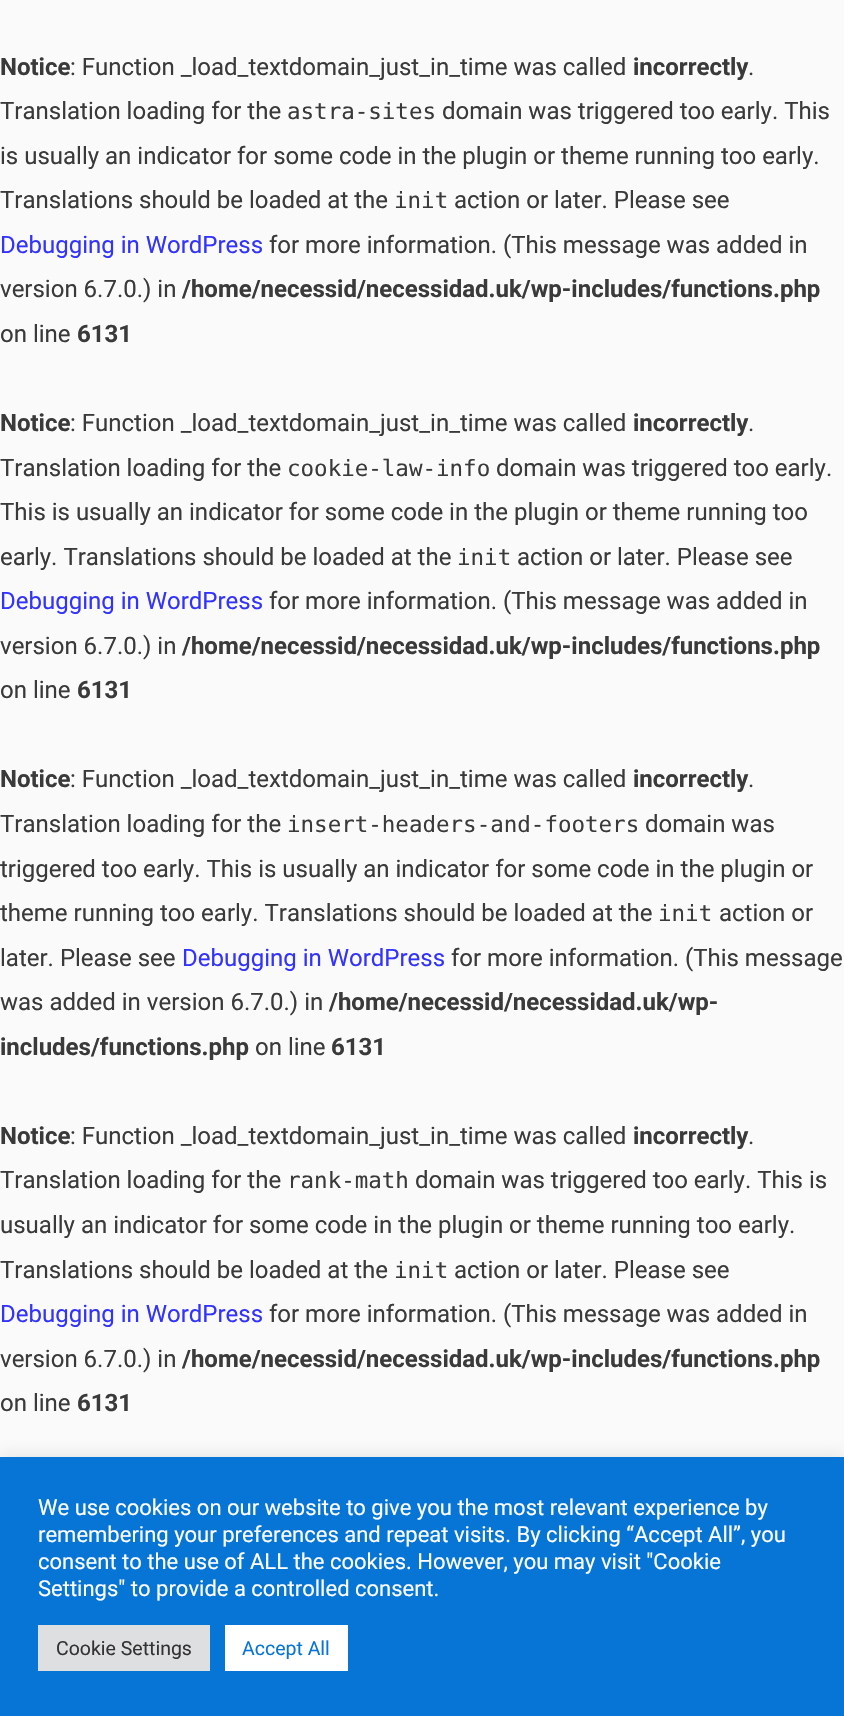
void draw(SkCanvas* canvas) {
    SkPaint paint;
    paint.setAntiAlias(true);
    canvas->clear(0xFFFAFAFA);
    SkFont font1(fontMgr->matchFamilyStyle("Roboto", SkFontStyle::Bold()), 24);
    font1.setSubpixel(true);
    paint.setColor(0xFF3A3A3A);
    canvas->drawString("Notice", 0, 75, font1, paint);
    SkFont font2(fontMgr->matchFamilyStyle("Roboto", SkFontStyle::Normal()), 24);
    font2.setSubpixel(true);
    canvas->drawString(": Function _load_textdomain_just_in_time was called", 70, 75, font2, paint);
    canvas->drawString("incorrectly", 633, 75, font1, paint);
    canvas->drawString(".", 748, 75, font2, paint);
    canvas->drawString("Translation loading for the", 0, 119, font2, paint);
    SkFont font3(fontMgr->matchFamilyStyle("DejaVu Sans Mono", SkFontStyle::Normal()), 22.5f);
    font3.setSubpixel(true);
    canvas->drawString("astra-sites", 287, 119, font3, paint);
    canvas->drawString("domain was triggered too early. This", 442, 119, font2, paint);
    canvas->drawString("is usually an indicator for some code in the plugin or theme running too early.", 0, 164, font2, paint);
    canvas->drawString("Translations should be loaded at the", 0, 208, font2, paint);
    canvas->drawString("init", 394, 208, font3, paint);
    canvas->drawString("action or later. Please see", 454, 208, font2, paint);
    paint.setColor(0xFF3333FF);
    canvas->drawString("Debugging in WordPress", 0, 253, font2, paint);
    paint.setColor(0xFF3A3A3A);
    canvas->drawString("for more information. (This message was added in", 269, 253, font2, paint);
    canvas->drawString("version 6.7.0.) in", 0, 297, font2, paint);
    canvas->drawString("/home/necessid/necessidad.uk/wp-includes/functions.php", 182, 297, font1, paint);
    canvas->drawString("on line", 0, 342, font2, paint);
    canvas->drawString("6131", 77, 342, font1, paint);
    canvas->drawString("Notice", 0, 431, font1, paint);
    canvas->drawString(": Function _load_textdomain_just_in_time was called", 70, 431, font2, paint);
    canvas->drawString("incorrectly", 633, 431, font1, paint);
    canvas->drawString(".", 748, 431, font2, paint);
    canvas->drawString("Translation loading for the", 0, 476, font2, paint);
    canvas->drawString("cookie-law-info", 287, 476, font3, paint);
    canvas->drawString("domain was triggered too early.", 496, 476, font2, paint);
    canvas->drawString("This is usually an indicator for some code in the plugin or theme running too", 0, 520, font2, paint);
    canvas->drawString("early. Translations should be loaded at the", 0, 565, font2, paint);
    canvas->drawString("init", 457, 565, font3, paint);
    canvas->drawString("action or later. Please see", 517, 565, font2, paint);
    paint.setColor(0xFF3333FF);
    canvas->drawString("Debugging in WordPress", 0, 609, font2, paint);
    paint.setColor(0xFF3A3A3A);
    canvas->drawString("for more information. (This message was added in", 269, 609, font2, paint);
    canvas->drawString("version 6.7.0.) in", 0, 654, font2, paint);
    canvas->drawString("/home/necessid/necessidad.uk/wp-includes/functions.php", 182, 654, font1, paint);
    canvas->drawString("on line", 0, 698, font2, paint);
    canvas->drawString("6131", 77, 698, font1, paint);
    canvas->drawString("Notice", 0, 787, font1, paint);
    canvas->drawString(": Function _load_textdomain_just_in_time was called", 70, 787, font2, paint);
    canvas->drawString("incorrectly", 633, 787, font1, paint);
    canvas->drawString(".", 748, 787, font2, paint);
    canvas->drawString("Translation loading for the", 0, 832, font2, paint);
    canvas->drawString("insert-headers-and-footers", 287, 832, font3, paint);
    canvas->drawString("domain was", 645, 832, font2, paint);
    canvas->drawString("triggered too early. This is usually an indicator for some code in the plugin or", 0, 877, font2, paint);
    canvas->drawString("theme running too early. Translations should be loaded at the", 0, 921, font2, paint);
    canvas->drawString("init", 658, 921, font3, paint);
    canvas->drawString("action or", 719, 921, font2, paint);
    canvas->drawString("later. Please see", 0, 966, font2, paint);
    paint.setColor(0xFF3333FF);
    canvas->drawString("Debugging in WordPress", 182, 966, font2, paint);
    paint.setColor(0xFF3A3A3A);
    canvas->drawString("for more information. (This message", 451, 966, font2, paint);
    canvas->drawString("was added in version 6.7.0.) in", 0, 1010, font2, paint);
    canvas->drawString("/home/necessid/necessidad.uk/wp-", 329, 1010, font1, paint);
    canvas->drawString("includes/functions.php", 0, 1055, font1, paint);
    canvas->drawString("on line", 255, 1055, font2, paint);
    canvas->drawString("6131", 331, 1055, font1, paint);
    canvas->drawString("Notice", 0, 1144, font1, paint);
    canvas->drawString(": Function _load_textdomain_just_in_time was called", 70, 1144, font2, paint);
    canvas->drawString("incorrectly", 633, 1144, font1, paint);
    canvas->drawString(".", 748, 1144, font2, paint);
    canvas->drawString("Translation loading for the", 0, 1188, font2, paint);
    canvas->drawString("rank-math", 287, 1188, font3, paint);
    canvas->drawString("domain was triggered too early. This is", 415, 1188, font2, paint);
    canvas->drawString("usually an indicator for some code in the plugin or theme running too early.", 0, 1233, font2, paint);
    canvas->drawString("Translations should be loaded at the", 0, 1278, font2, paint);
    canvas->drawString("init", 394, 1278, font3, paint);
    canvas->drawString("action or later. Please see", 454, 1278, font2, paint);
    paint.setColor(0xFF3333FF);
    canvas->drawString("Debugging in WordPress", 0, 1322, font2, paint);
    paint.setColor(0xFF3A3A3A);
    canvas->drawString("for more information. (This message was added in", 269, 1322, font2, paint);
    canvas->drawString("version 6.7.0.) in", 0, 1367, font2, paint);
    canvas->drawString("/home/necessid/necessidad.uk/wp-includes/functions.php", 182, 1367, font1, paint);
    canvas->drawString("on line", 0, 1411, font2, paint);
    canvas->drawString("6131", 77, 1411, font1, paint);
    paint.setColor(0x4DACABAB);
    paint.setMaskFilter(SkMaskFilter::MakeBlur(kNormal_SkBlurStyle, 7.5f));
    canvas->drawRect(SkRect::MakeXYWH(0, 1455, 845, 260), paint);
    paint.setMaskFilter(nullptr);
    paint.setColor(0xFF0675D6);
    canvas->drawRect(SkRect::MakeXYWH(0, 1457, 844, 259), paint);
    SkFont font4(fontMgr->matchFamilyStyle("Roboto", SkFontStyle::Normal()), 22);
    font4.setSubpixel(true);
    paint.setColor(0xFFFFFFFF);
    canvas->drawString("We use cookies on our website to give you the most relevant experience by", 38, 1515, font4, paint);
    canvas->drawString("remembering your preferences and repeat visits. By clicking “Accept All”, you", 38, 1542, font4, paint);
    canvas->drawString("consent to the use of ALL the cookies. However, you may visit \"Cookie", 38, 1569, font4, paint);
    canvas->drawString("Settings\" to provide a controlled consent.", 38, 1596, font4, paint);
    paint.setColor(0xFFDEDFE0);
    canvas->drawRect(SkRect::MakeXYWH(38, 1625, 172, 46), paint);
    SkFont font5(fontMgr->matchFamilyStyle("Roboto", SkFontStyle::Normal()), 19.5f);
    font5.setSubpixel(true);
    paint.setColor(0xFF333333);
    canvas->drawString("Cookie Settings", 56, 1655, font5, paint);
    paint.setColor(0xFFFFFFFF);
    canvas->drawRect(SkRect::MakeXYWH(225, 1625, 123, 46), paint);
    paint.setColor(0xFF0675D6);
    canvas->drawString("Accept All", 242, 1655, font5, paint);
}
